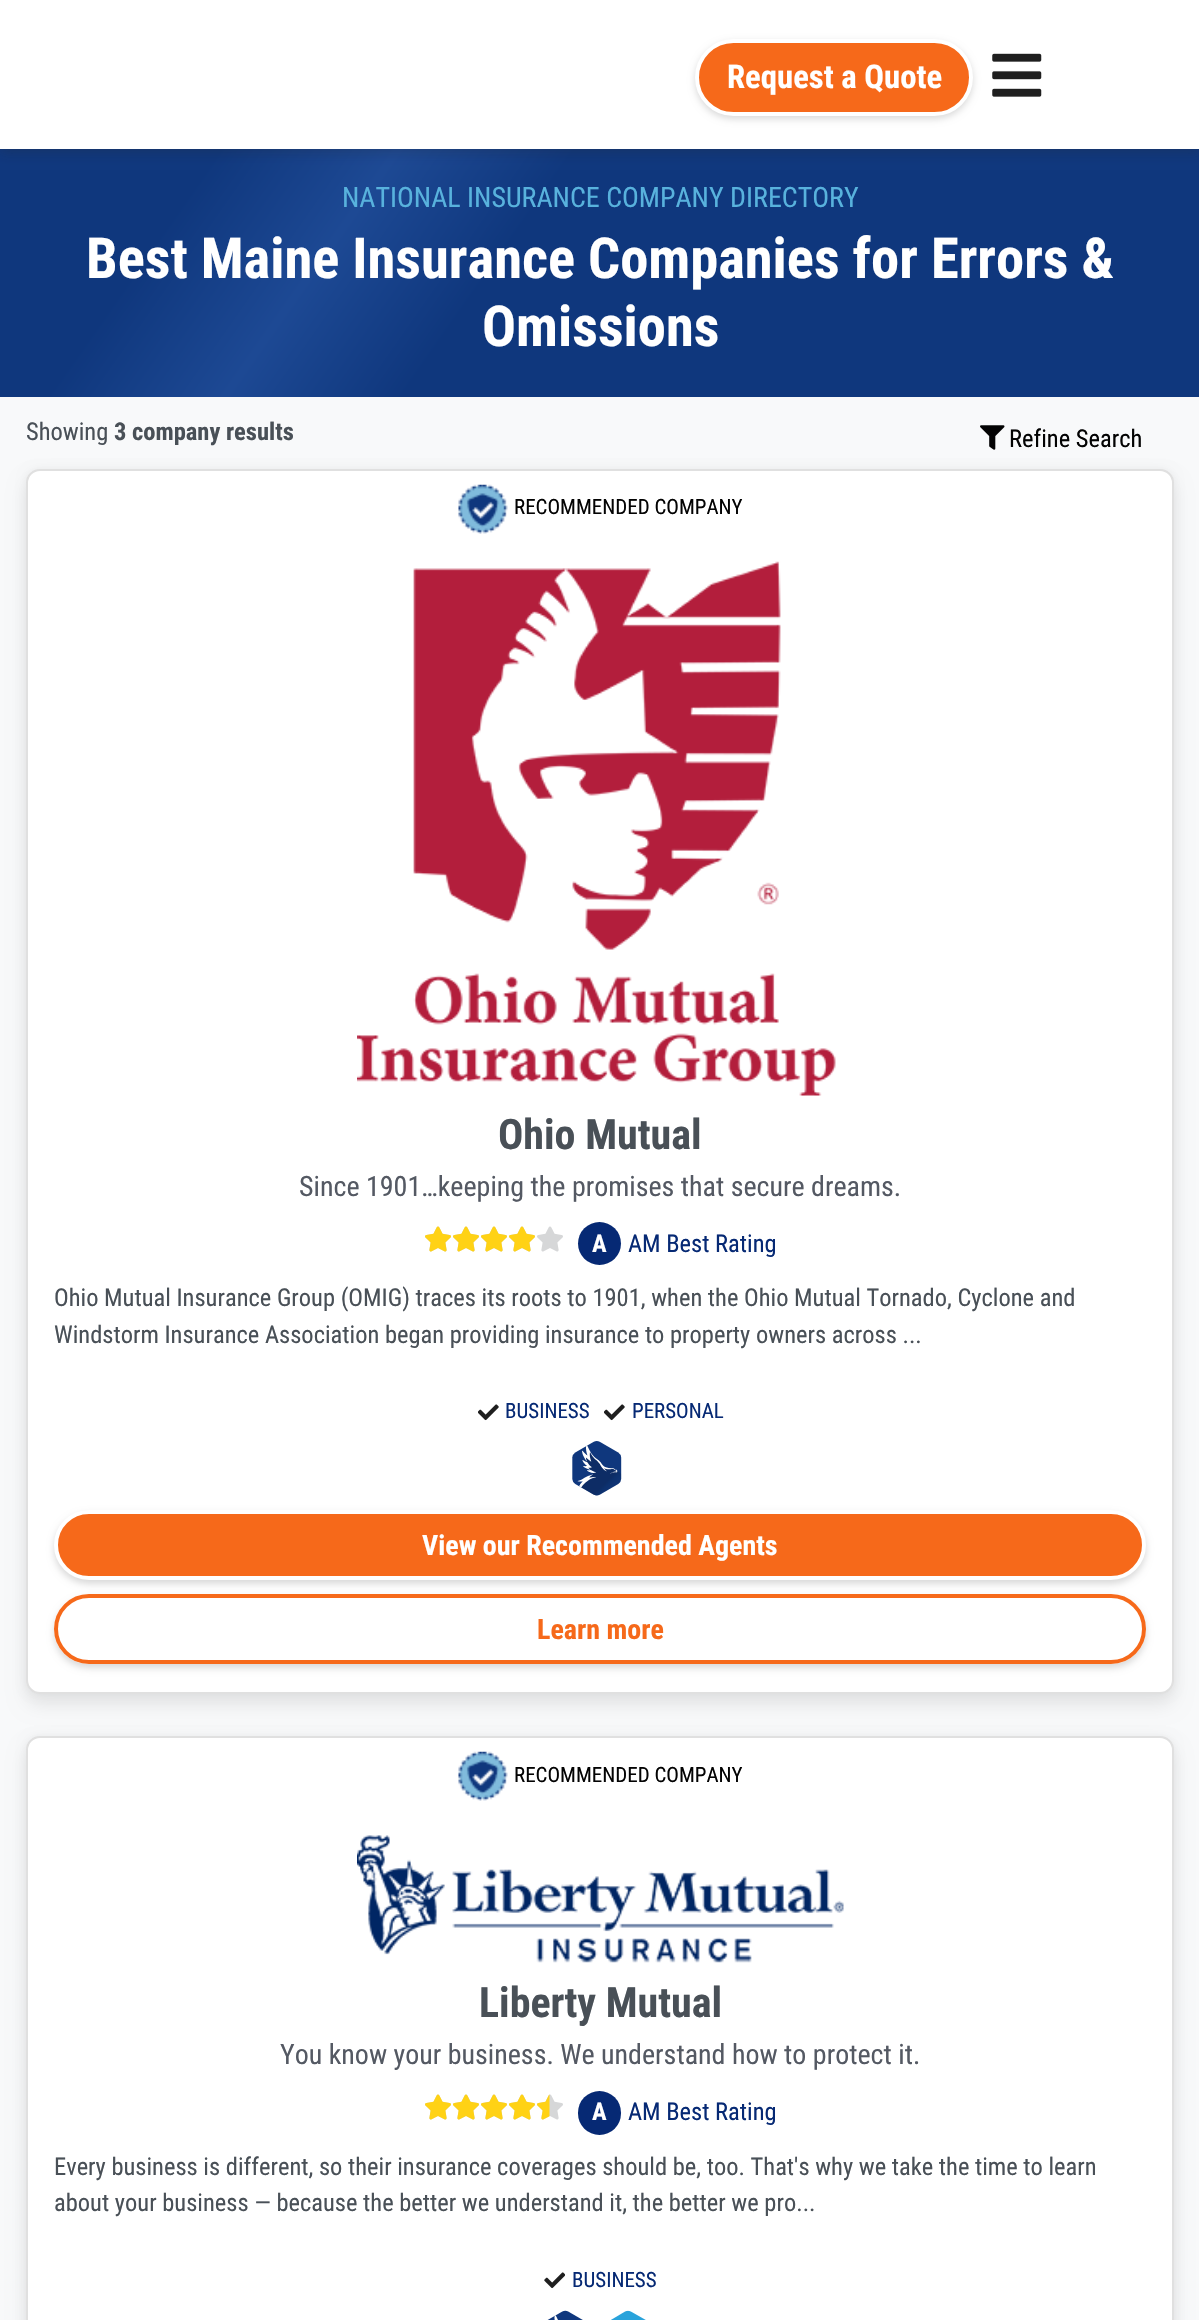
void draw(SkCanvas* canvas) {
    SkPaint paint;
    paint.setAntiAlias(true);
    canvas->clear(0xFFF8F9FA);
    {
        const SkColor colors[] = {0xFF0F377D, 0xFF0F377D, 0xFF1D4994, 0xFF0F377D, 0xFF0F377D};
        const float stops[] = {0, 0.16f, 0.29f, 0.42f, 1};
        const SkPoint ends[] = {{139, -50}, {1061, 596}};
        paint.setShader(SkGradientShader::MakeLinear(ends, colors, stops, 5, SkTileMode::kClamp));
        paint.setAlpha(255);
    }
    canvas->drawRect(SkRect::MakeXYWH(0, 149, 1199, 248), paint);
    paint.setShader(nullptr);
    paint.setColor(0x40292929);
    paint.setMaskFilter(SkMaskFilter::MakeBlur(kNormal_SkBlurStyle, 6));
    canvas->drawRect(SkRect::MakeXYWH(0, 4, 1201, 148), paint);
    paint.setMaskFilter(nullptr);
    paint.setColor(0xFFFFFFFF);
    canvas->drawRect(SkRect::MakeXYWH(0, 0, 1199, 149), paint);
    paint.setColor(0x26000000);
    paint.setMaskFilter(SkMaskFilter::MakeBlur(kNormal_SkBlurStyle, 3.5f));
    canvas->drawRoundRect(SkRect::MakeXYWH(695, 42, 278, 77), 38.5f, 38.5f, paint);
    paint.setMaskFilter(nullptr);
    paint.setColor(0xFFF6691A);
    canvas->drawRoundRect(SkRect::MakeXYWH(697, 41, 274, 73), 36.5f, 36.5f, paint);
    paint.setStyle(SkPaint::kStroke_Style);
    paint.setStrokeWidth(4);
    paint.setColor(0xFFFFFFFF);
    canvas->drawRoundRect(SkRect::MakeXYWH(697, 41, 274, 73), 36.5f, 36.5f, paint);
    SkFont font1(fontMgr->matchFamilyStyle("Roboto Condensed", SkFontStyle::Bold()), 32.75f);
    font1.setSubpixel(true);
    paint.setStyle(SkPaint::kFill_Style);
    canvas->drawString("Request a Quote", 727, 88, font1, paint);
    canvas->drawImageRect(SkImages::DeferredFromEncodedData(SkData::MakeFromFileName("img1.png")), SkRect::MakeXYWH(992, 53, 50, 44), SkSamplingOptions());
    SkFont font2(fontMgr->matchFamilyStyle("Roboto Condensed", SkFontStyle::Normal()), 28);
    font2.setSubpixel(true);
    paint.setColor(0xFF58B2DD);
    canvas->drawString("NATIONAL INSURANCE COMPANY DIRECTORY", 342, 207, font2, paint);
    SkFont font3(fontMgr->matchFamilyStyle("Roboto Condensed", SkFontStyle::Bold()), 56.5f);
    font3.setSubpixel(true);
    paint.setColor(0xFFFFFFFF);
    canvas->drawString("Best Maine Insurance Companies for Errors &", 86, 278, font3, paint);
    canvas->drawString("Omissions", 482, 346, font3, paint);
    SkFont font4(fontMgr->matchFamilyStyle("Roboto Condensed", SkFontStyle::Normal()), 24.5f);
    font4.setSubpixel(true);
    paint.setColor(0xFF495057);
    canvas->drawString("Showing", 26, 440, font4, paint);
    SkFont font5(fontMgr->matchFamilyStyle("Roboto Condensed", SkFontStyle::Bold()), 24.5f);
    font5.setSubpixel(true);
    canvas->drawString("3 company results", 114, 440, font5, paint);
    canvas->drawImageRect(SkImages::DeferredFromEncodedData(SkData::MakeFromFileName("img2.png")), SkRect::MakeXYWH(980, 425, 25, 25), SkSamplingOptions());
    paint.setColor(0xFF030303);
    canvas->drawString("Refine Search", 1009, 447, font4, paint);
    paint.setColor(0x0D000000);
    paint.setMaskFilter(SkMaskFilter::MakeBlur(kNormal_SkBlurStyle, 5));
    canvas->drawRoundRect(SkRect::MakeXYWH(26, 469, 1148, 1225), 14, 14, paint);
    paint.setMaskFilter(nullptr);
    paint.setColor(0x14000000);
    paint.setMaskFilter(SkMaskFilter::MakeBlur(kNormal_SkBlurStyle, 9));
    canvas->drawRoundRect(SkRect::MakeXYWH(26, 480, 1148, 1225), 14, 14, paint);
    paint.setMaskFilter(nullptr);
    paint.setColor(0xFFFFFFFF);
    canvas->drawRoundRect(SkRect::MakeXYWH(26, 469, 1148, 1225), 14, 14, paint);
    paint.setStyle(SkPaint::kStroke_Style);
    paint.setStrokeWidth(2);
    paint.setColor(0x1F000000);
    canvas->drawRoundRect(SkRect::MakeXYWH(27, 470, 1146, 1223), 13, 13, paint);
    canvas->drawImageRect(SkImages::DeferredFromEncodedData(SkData::MakeFromFileName("img3.png")), SkRect::MakeXYWH(458, 484, 50, 50), SkSamplingOptions());
    SkFont font6(fontMgr->matchFamilyStyle("Roboto Condensed", SkFontStyle::Normal()), 21);
    font6.setSubpixel(true);
    paint.setStyle(SkPaint::kFill_Style);
    paint.setColor(0xFF030303);
    canvas->drawString("RECOMMENDED COMPANY", 514, 514, font6, paint);
    canvas->drawImageRect(SkImages::DeferredFromEncodedData(SkData::MakeFromFileName("img4.png")), SkRect::MakeXYWH(357, 561, 479, 535), SkSamplingOptions());
    SkFont font7(fontMgr->matchFamilyStyle("Roboto Condensed", SkFontStyle::Bold()), 42);
    font7.setSubpixel(true);
    paint.setColor(0xFF495057);
    canvas->drawString("Ohio Mutual", 498, 1149, font7, paint);
    paint.setColor(0xFF545963);
    canvas->drawString("Since 1901…keeping the promises that secure dreams.", 299, 1196, font2, paint);
    canvas->drawImageRect(SkImages::DeferredFromEncodedData(SkData::MakeFromFileName("img5.png")), SkRect::MakeXYWH(425, 1226, 138, 26), SkSamplingOptions());
    canvas->drawImageRect(SkImages::DeferredFromEncodedData(SkData::MakeFromFileName("img6.png")), SkRect::MakeXYWH(425, 1226, 110, 26), SkSamplingOptions());
    paint.setColor(0xFF062974);
    canvas->drawCircle(599.5f, 1243.5f, 21.5f, paint);
    paint.setColor(0xFFFFFFFF);
    canvas->drawString("A", 592, 1252, font5, paint);
    paint.setColor(0xFF062974);
    canvas->drawString("AM Best Rating", 628, 1252, font4, paint);
    paint.setColor(0xFF495057);
    canvas->drawString("Ohio Mutual Insurance Group (OMIG) traces its roots to 1901, when the Ohio Mutual Tornado, Cyclone and", 54, 1306, font4, paint);
    canvas->drawString("Windstorm Insurance Association began providing insurance to property owners across ...", 54, 1343, font4, paint);
    canvas->drawImageRect(SkImages::DeferredFromEncodedData(SkData::MakeFromFileName("img7.png")), SkRect::MakeXYWH(478, 1404, 21, 17), SkSamplingOptions());
    paint.setColor(0xFF062974);
    canvas->drawString("BUSINESS", 505, 1418, font6, paint);
    canvas->drawImageRect(SkImages::DeferredFromEncodedData(SkData::MakeFromFileName("img7.png")), SkRect::MakeXYWH(604, 1404, 21, 17), SkSamplingOptions());
    canvas->drawString("PERSONAL", 632, 1418, font6, paint);
    canvas->drawImageRect(SkImages::DeferredFromEncodedData(SkData::MakeFromFileName("img8.png")), SkRect::MakeXYWH(572, 1441, 50, 55), SkSamplingOptions());
    paint.setColor(0x26000000);
    paint.setMaskFilter(SkMaskFilter::MakeBlur(kNormal_SkBlurStyle, 3.5f));
    canvas->drawRoundRect(SkRect::MakeXYWH(54, 1514, 1092, 70), 35, 35, paint);
    paint.setMaskFilter(nullptr);
    paint.setColor(0xFFF6691A);
    canvas->drawRoundRect(SkRect::MakeXYWH(56, 1512, 1088, 66), 33, 33, paint);
    paint.setStyle(SkPaint::kStroke_Style);
    paint.setStrokeWidth(4);
    paint.setColor(0xFFFFFFFF);
    canvas->drawRoundRect(SkRect::MakeXYWH(56, 1512, 1088, 66), 33, 33, paint);
    SkFont font8(fontMgr->matchFamilyStyle("Roboto Condensed", SkFontStyle::Bold()), 28);
    font8.setSubpixel(true);
    paint.setStyle(SkPaint::kFill_Style);
    canvas->drawString("View our Recommended Agents", 422, 1555, font8, paint);
    canvas->save();
    canvas->clipPath(SkPathBuilder(SkPathFillType::kEvenOdd).moveTo(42, 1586).lineTo(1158, 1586).lineTo(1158, 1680).lineTo(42, 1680).close().moveTo(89, 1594).lineTo(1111, 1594).cubicTo(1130.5f, 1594, 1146, 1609.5f, 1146, 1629).cubicTo(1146, 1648.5f, 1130.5f, 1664, 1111, 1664).lineTo(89, 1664).cubicTo(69.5f, 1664, 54, 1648.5f, 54, 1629).cubicTo(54, 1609.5f, 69.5f, 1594, 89, 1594).close().detach(), true);
    paint.setColor(0x26000000);
    paint.setMaskFilter(SkMaskFilter::MakeBlur(kNormal_SkBlurStyle, 3.5f));
    canvas->drawRoundRect(SkRect::MakeXYWH(54, 1598, 1092, 70), 35, 35, paint);
    paint.setMaskFilter(nullptr);
    canvas->restore();
    paint.setStyle(SkPaint::kStroke_Style);
    paint.setColor(0xFFF6691A);
    canvas->drawRoundRect(SkRect::MakeXYWH(56, 1596, 1088, 66), 33, 33, paint);
    paint.setStyle(SkPaint::kFill_Style);
    canvas->drawString("Learn more", 537, 1639, font8, paint);
    paint.setColor(0x0D000000);
    paint.setMaskFilter(SkMaskFilter::MakeBlur(kNormal_SkBlurStyle, 5));
    canvas->drawRoundRect(SkRect::MakeXYWH(26, 1736, 1148, 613), 14, 14, paint);
    paint.setMaskFilter(nullptr);
    paint.setColor(0x14000000);
    paint.setMaskFilter(SkMaskFilter::MakeBlur(kNormal_SkBlurStyle, 9));
    canvas->drawRoundRect(SkRect::MakeXYWH(26, 1747, 1148, 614), 14, 14, paint);
    paint.setMaskFilter(nullptr);
    paint.setColor(0xFFFFFFFF);
    canvas->drawRoundRect(SkRect::MakeXYWH(26, 1736, 1148, 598), 14, 14, paint);
    paint.setStyle(SkPaint::kStroke_Style);
    paint.setStrokeWidth(2);
    paint.setColor(0x1F000000);
    canvas->drawRoundRect(SkRect::MakeXYWH(27, 1737, 1146, 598), 13, 13, paint);
    canvas->drawImageRect(SkImages::DeferredFromEncodedData(SkData::MakeFromFileName("img3.png")), SkRect::MakeXYWH(458, 1751, 50, 50), SkSamplingOptions());
    paint.setStyle(SkPaint::kFill_Style);
    paint.setColor(0xFF030303);
    canvas->drawString("RECOMMENDED COMPANY", 514, 1782, font6, paint);
    canvas->drawImageRect(SkImages::DeferredFromEncodedData(SkData::MakeFromFileName("img9.png")), SkRect::MakeXYWH(357, 1835, 487, 128), SkSamplingOptions());
    paint.setColor(0xFF495057);
    canvas->drawString("Liberty Mutual", 479, 2017, font7, paint);
    paint.setColor(0xFF545963);
    canvas->drawString("You know your business. We understand how to protect it.", 280, 2064, font2, paint);
    canvas->drawImageRect(SkImages::DeferredFromEncodedData(SkData::MakeFromFileName("img5.png")), SkRect::MakeXYWH(425, 2094, 138, 26), SkSamplingOptions());
    canvas->drawImageRect(SkImages::DeferredFromEncodedData(SkData::MakeFromFileName("img10.png")), SkRect::MakeXYWH(425, 2094, 125, 26), SkSamplingOptions());
    paint.setColor(0xFF062974);
    canvas->drawRoundRect(SkRect::MakeXYWH(578, 2091, 43, 44), 21.5f, 21.5f, paint);
    paint.setColor(0xFFFFFFFF);
    canvas->drawString("A", 592, 2120, font5, paint);
    paint.setColor(0xFF062974);
    canvas->drawString("AM Best Rating", 628, 2120, font4, paint);
    paint.setColor(0xFF495057);
    canvas->drawString("Every business is different, so their insurance coverages should be, too. That's why we take the time to learn", 54, 2175, font4, paint);
    canvas->drawString("about your business — because the better we understand it, the better we pro...", 54, 2211, font4, paint);
    canvas->drawImageRect(SkImages::DeferredFromEncodedData(SkData::MakeFromFileName("img11.png")), SkRect::MakeXYWH(544, 2272, 21, 17), SkSamplingOptions());
    paint.setColor(0xFF062974);
    canvas->drawString("BUSINESS", 572, 2287, font6, paint);
    canvas->drawImageRect(SkImages::DeferredFromEncodedData(SkData::MakeFromFileName("img12.png")), SkRect::MakeXYWH(547, 2310, 36, 10), SkSamplingOptions());
    canvas->drawImageRect(SkImages::DeferredFromEncodedData(SkData::MakeFromFileName("img13.png")), SkRect::MakeXYWH(611, 2310, 35, 10), SkSamplingOptions());
}
